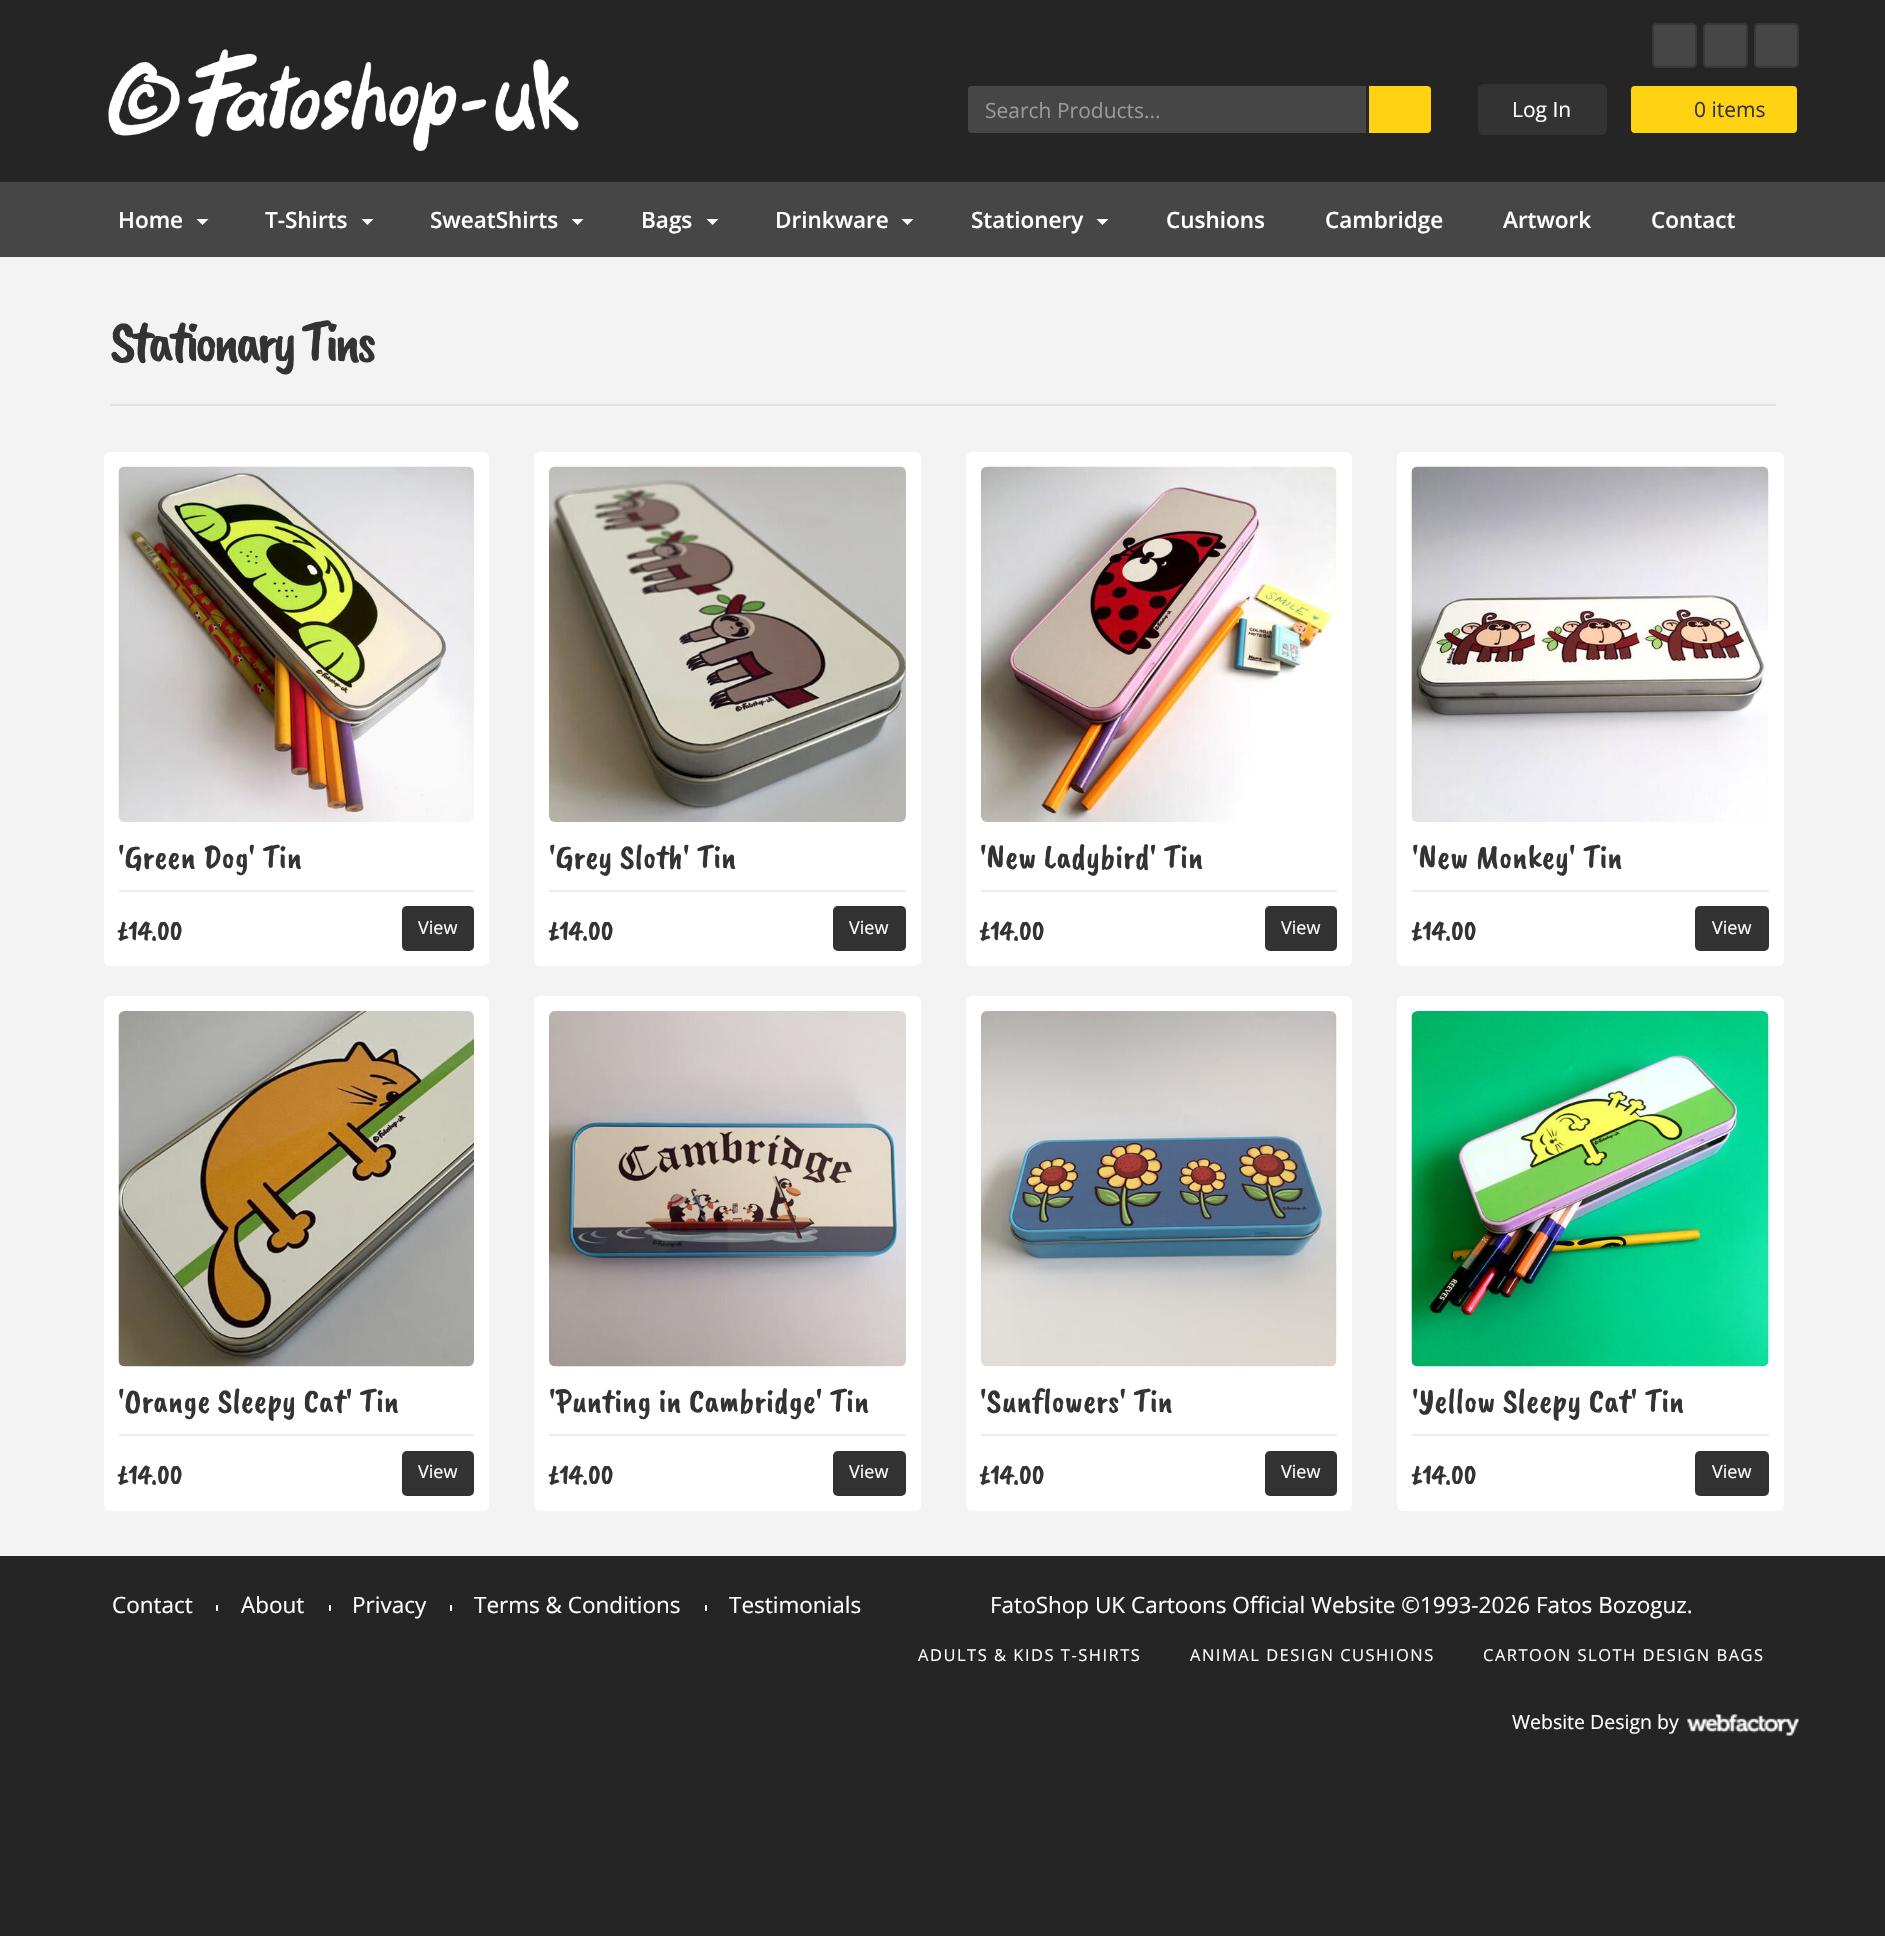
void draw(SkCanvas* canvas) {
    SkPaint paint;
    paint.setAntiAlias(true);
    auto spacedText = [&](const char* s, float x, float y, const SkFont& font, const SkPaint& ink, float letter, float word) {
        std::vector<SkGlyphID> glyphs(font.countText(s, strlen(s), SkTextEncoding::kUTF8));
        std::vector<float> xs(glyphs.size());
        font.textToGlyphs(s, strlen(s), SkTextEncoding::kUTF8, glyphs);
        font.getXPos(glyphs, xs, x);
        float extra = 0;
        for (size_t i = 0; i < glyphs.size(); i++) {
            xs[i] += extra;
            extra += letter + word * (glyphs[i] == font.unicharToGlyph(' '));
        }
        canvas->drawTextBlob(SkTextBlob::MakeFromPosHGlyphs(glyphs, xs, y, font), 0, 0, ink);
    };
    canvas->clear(0xFF252525);
    canvas->drawImageRect(SkImages::DeferredFromEncodedData(SkData::MakeFromFileName("img1.png")), SkRect::MakeXYWH(108, 49, 471, 102), SkSamplingOptions());
    paint.setColor(0xFF464646);
    canvas->drawRoundRect(SkRect::MakeXYWH(1652, 23, 45, 45), 5, 5, paint);
    paint.setStyle(SkPaint::kStroke_Style);
    paint.setStrokeWidth(2);
    paint.setColor(0x33000000);
    canvas->drawRoundRect(SkRect::MakeXYWH(1653, 24, 43, 43), 4, 4, paint);
    paint.setStyle(SkPaint::kFill_Style);
    paint.setColor(0xFF464646);
    canvas->drawRoundRect(SkRect::MakeXYWH(1703, 23, 45, 45), 5, 5, paint);
    paint.setStyle(SkPaint::kStroke_Style);
    paint.setColor(0x33000000);
    canvas->drawRoundRect(SkRect::MakeXYWH(1704, 24, 43, 43), 4, 4, paint);
    paint.setStyle(SkPaint::kFill_Style);
    paint.setColor(0xFF464646);
    canvas->drawRoundRect(SkRect::MakeXYWH(1754, 23, 45, 45), 5, 5, paint);
    paint.setStyle(SkPaint::kStroke_Style);
    paint.setColor(0x33000000);
    canvas->drawRoundRect(SkRect::MakeXYWH(1755, 24, 43, 43), 4, 4, paint);
    paint.setStyle(SkPaint::kFill_Style);
    paint.setColor(0xFF464646);
    canvas->drawPath(SkPathBuilder().moveTo(972, 85).lineTo(1367, 85).lineTo(1367, 134).lineTo(972, 134).cubicTo(969, 134, 967, 132, 967, 129).lineTo(967, 90).cubicTo(967, 87, 969, 85, 972, 85).close().detach(), paint);
    paint.setStyle(SkPaint::kStroke_Style);
    paint.setColor(0xFF252525);
    canvas->drawPath(SkPathBuilder().moveTo(972, 85).lineTo(1367, 85).lineTo(1367, 134).lineTo(972, 134).cubicTo(969, 134, 967, 132, 967, 129).lineTo(967, 90).cubicTo(967, 87, 969, 85, 972, 85).close().detach(), paint);
    SkFont font1(fontMgr->matchFamilyStyle("Open Sans", SkFontStyle::Normal()), 21);
    font1.setSubpixel(true);
    paint.setStyle(SkPaint::kFill_Style);
    paint.setColor(0xFF999999);
    canvas->drawString("Search Products...", 985, 118, font1, paint);
    paint.setColor(0xFFFFD311);
    canvas->drawPath(SkPathBuilder().moveTo(1368, 85).lineTo(1427, 85).cubicTo(1430, 85, 1432, 87, 1432, 90).lineTo(1432, 129).cubicTo(1432, 132, 1430, 134, 1427, 134).lineTo(1368, 134).close().detach(), paint);
    paint.setStyle(SkPaint::kStroke_Style);
    paint.setColor(0xFF252525);
    canvas->drawPath(SkPathBuilder().moveTo(1368, 85).lineTo(1427, 85).cubicTo(1430, 85, 1432, 87, 1432, 90).lineTo(1432, 129).cubicTo(1432, 132, 1430, 134, 1427, 134).lineTo(1368, 134).close().detach(), paint);
    paint.setStyle(SkPaint::kFill_Style);
    paint.setColor(0xFF333333);
    canvas->drawRoundRect(SkRect::MakeXYWH(1478, 84, 129, 51), 6, 6, paint);
    paint.setColor(0xFFFFFFFF);
    canvas->drawString("Log In", 1512, 117, font1, paint);
    paint.setColor(0xFFFFD311);
    canvas->drawRoundRect(SkRect::MakeXYWH(1630, 85, 168, 49), 5, 5, paint);
    paint.setStyle(SkPaint::kStroke_Style);
    paint.setColor(0xFF252525);
    canvas->drawRoundRect(SkRect::MakeXYWH(1630, 85, 168, 49), 5, 5, paint);
    paint.setStyle(SkPaint::kFill_Style);
    paint.setColor(0xFF333333);
    canvas->drawString("0 items", 1694, 117, font1, paint);
    paint.setColor(0xFF464646);
    canvas->drawRect(SkRect::MakeXYWH(0, 182, 1885, 75), paint);
    SkFont font2(fontMgr->matchFamilyStyle("Open Sans", SkFontStyle(600, SkFontStyle::kNormal_Width, SkFontStyle::kUpright_Slant)), 22.5f);
    font2.setSubpixel(true);
    paint.setColor(0xFFFFFFFF);
    canvas->drawString("Home", 118, 228, font2, paint);
    canvas->drawPath(SkPathBuilder().moveTo(196.5f, 219).lineTo(208.5f, 219).lineTo(202.5f, 225).close().detach(), paint);
    canvas->drawString("T-Shirts", 265, 228, font2, paint);
    canvas->drawPath(SkPathBuilder().moveTo(361.5f, 219).lineTo(373.5f, 219).lineTo(367.5f, 225).close().detach(), paint);
    canvas->drawString("SweatShirts", 430, 228, font2, paint);
    canvas->drawPath(SkPathBuilder().moveTo(571.5f, 219).lineTo(583.5f, 219).lineTo(577.5f, 225).close().detach(), paint);
    canvas->drawString("Bags", 641, 228, font2, paint);
    canvas->drawPath(SkPathBuilder().moveTo(706.5f, 219).lineTo(718.5f, 219).lineTo(712.5f, 225).close().detach(), paint);
    canvas->drawString("Drinkware", 775, 228, font2, paint);
    canvas->drawPath(SkPathBuilder().moveTo(901.5f, 219).lineTo(913.5f, 219).lineTo(907.5f, 225).close().detach(), paint);
    canvas->drawString("Stationery", 971, 228, font2, paint);
    canvas->drawPath(SkPathBuilder().moveTo(1096.5f, 219).lineTo(1108.5f, 219).lineTo(1102.5f, 225).close().detach(), paint);
    canvas->drawString("Cushions", 1166, 228, font2, paint);
    canvas->drawString("Cambridge", 1325, 228, font2, paint);
    canvas->drawString("Artwork", 1503, 228, font2, paint);
    canvas->drawString("Contact", 1651, 228, font2, paint);
    paint.setColor(0xFFF3F3F3);
    canvas->drawRect(SkRect::MakeXYWH(0, 257, 1885, 1299), paint);
    paint.setColor(0xFFE0E0E0);
    canvas->drawRect(SkRect::MakeXYWH(111, 404, 1665, 2), paint);
    SkFont font3(fontMgr->matchFamilyStyle("Caveat Brush", SkFontStyle::Normal()), 60);
    font3.setSubpixel(true);
    paint.setColor(0xFF333333);
    spacedText("Stationary Tins", 110, 361, font3, paint, -4.5f, 0);
    paint.setColor(0xFFFFFFFF);
    canvas->drawRoundRect(SkRect::MakeXYWH(104, 452, 385, 514), 6, 6, paint);
    canvas->drawImageRect(SkImages::DeferredFromEncodedData(SkData::MakeFromFileName("img2.png")), SkRect::MakeXYWH(118, 466, 356, 356), SkSamplingOptions());
    paint.setColor(0xFFEBEBEB);
    canvas->drawRect(SkRect::MakeXYWH(119, 890, 355, 2), paint);
    SkFont font4(fontMgr->matchFamilyStyle("Caveat Brush", SkFontStyle::Normal()), 34.5f);
    font4.setSubpixel(true);
    paint.setColor(0xFF333333);
    canvas->drawString("'Green Dog' Tin", 118, 868, font4, paint);
    SkFont font5(fontMgr->matchFamilyStyle("Caveat Brush", SkFontStyle::Normal()), 28.5f);
    font5.setSubpixel(true);
    canvas->drawString("£14.00", 118, 940, font5, paint);
    canvas->drawRoundRect(SkRect::MakeXYWH(402, 906, 72, 45), 5, 5, paint);
    paint.setStyle(SkPaint::kStroke_Style);
    paint.setColor(0x0D000000);
    canvas->drawRect(SkRect::MakeXYWH(403, 907, 70, 43), paint);
    SkFont font6(fontMgr->matchFamilyStyle("Open Sans", SkFontStyle::Normal()), 18);
    font6.setSubpixel(true);
    paint.setStyle(SkPaint::kFill_Style);
    paint.setColor(0xFFFFFFFF);
    canvas->drawString("View", 418, 934, font6, paint);
    canvas->drawRoundRect(SkRect::MakeXYWH(534, 452, 387, 514), 6, 6, paint);
    canvas->drawImageRect(SkImages::DeferredFromEncodedData(SkData::MakeFromFileName("img3.png")), SkRect::MakeXYWH(549, 466, 357, 356), SkSamplingOptions());
    paint.setColor(0xFFEBEBEB);
    canvas->drawRect(SkRect::MakeXYWH(549, 890, 357, 2), paint);
    paint.setColor(0xFF333333);
    canvas->drawString("'Grey Sloth' Tin", 549, 868, font4, paint);
    canvas->drawString("£14.00", 549, 940, font5, paint);
    canvas->drawRoundRect(SkRect::MakeXYWH(833, 906, 73, 45), 5, 5, paint);
    paint.setStyle(SkPaint::kStroke_Style);
    paint.setColor(0x0D000000);
    canvas->drawRect(SkRect::MakeXYWH(834, 907, 71, 43), paint);
    paint.setStyle(SkPaint::kFill_Style);
    paint.setColor(0xFFFFFFFF);
    canvas->drawString("View", 849, 934, font6, paint);
    canvas->drawRoundRect(SkRect::MakeXYWH(966, 452, 386, 514), 6, 6, paint);
    canvas->drawImageRect(SkImages::DeferredFromEncodedData(SkData::MakeFromFileName("img4.png")), SkRect::MakeXYWH(981, 466, 356, 356), SkSamplingOptions());
    paint.setColor(0xFFEBEBEB);
    canvas->drawRect(SkRect::MakeXYWH(981, 890, 356, 2), paint);
    paint.setColor(0xFF333333);
    canvas->drawString("'New Ladybird' Tin", 980, 868, font4, paint);
    canvas->drawString("£14.00", 980, 940, font5, paint);
    canvas->drawRoundRect(SkRect::MakeXYWH(1265, 906, 72, 45), 5, 5, paint);
    paint.setStyle(SkPaint::kStroke_Style);
    paint.setColor(0x0D000000);
    canvas->drawRect(SkRect::MakeXYWH(1266, 907, 70, 43), paint);
    paint.setStyle(SkPaint::kFill_Style);
    paint.setColor(0xFFFFFFFF);
    canvas->drawString("View", 1281, 934, font6, paint);
    canvas->drawRoundRect(SkRect::MakeXYWH(1397, 452, 387, 514), 6, 6, paint);
    canvas->drawImageRect(SkImages::DeferredFromEncodedData(SkData::MakeFromFileName("img5.png")), SkRect::MakeXYWH(1411, 466, 358, 356), SkSamplingOptions());
    paint.setColor(0xFFEBEBEB);
    canvas->drawRect(SkRect::MakeXYWH(1412, 890, 357, 2), paint);
    paint.setColor(0xFF333333);
    canvas->drawString("'New Monkey' Tin", 1412, 868, font4, paint);
    canvas->drawString("£14.00", 1412, 940, font5, paint);
    canvas->drawRoundRect(SkRect::MakeXYWH(1695, 906, 74, 45), 5, 5, paint);
    paint.setStyle(SkPaint::kStroke_Style);
    paint.setColor(0x0D000000);
    canvas->drawRect(SkRect::MakeXYWH(1696, 907, 72, 43), paint);
    paint.setStyle(SkPaint::kFill_Style);
    paint.setColor(0xFFFFFFFF);
    canvas->drawString("View", 1712, 934, font6, paint);
    canvas->drawRoundRect(SkRect::MakeXYWH(104, 996, 385, 515), 6, 6, paint);
    canvas->drawImageRect(SkImages::DeferredFromEncodedData(SkData::MakeFromFileName("img6.png")), SkRect::MakeXYWH(118, 1011, 356, 356), SkSamplingOptions());
    paint.setColor(0xFFEBEBEB);
    canvas->drawRect(SkRect::MakeXYWH(119, 1434, 355, 2), paint);
    paint.setColor(0xFF333333);
    canvas->drawString("'Orange Sleepy Cat' Tin", 118, 1412, font4, paint);
    canvas->drawString("£14.00", 118, 1484, font5, paint);
    canvas->drawRoundRect(SkRect::MakeXYWH(402, 1451, 72, 45), 5, 5, paint);
    paint.setStyle(SkPaint::kStroke_Style);
    paint.setColor(0x0D000000);
    canvas->drawRect(SkRect::MakeXYWH(403, 1452, 70, 43), paint);
    paint.setStyle(SkPaint::kFill_Style);
    paint.setColor(0xFFFFFFFF);
    canvas->drawString("View", 418, 1478, font6, paint);
    canvas->drawRoundRect(SkRect::MakeXYWH(534, 996, 387, 515), 6, 6, paint);
    canvas->drawImageRect(SkImages::DeferredFromEncodedData(SkData::MakeFromFileName("img7.png")), SkRect::MakeXYWH(549, 1011, 357, 356), SkSamplingOptions());
    paint.setColor(0xFFEBEBEB);
    canvas->drawRect(SkRect::MakeXYWH(549, 1434, 357, 2), paint);
    paint.setColor(0xFF333333);
    canvas->drawString("'Punting in Cambridge' Tin", 549, 1412, font4, paint);
    canvas->drawString("£14.00", 549, 1484, font5, paint);
    canvas->drawRoundRect(SkRect::MakeXYWH(833, 1451, 73, 45), 5, 5, paint);
    paint.setStyle(SkPaint::kStroke_Style);
    paint.setColor(0x0D000000);
    canvas->drawRect(SkRect::MakeXYWH(834, 1452, 71, 43), paint);
    paint.setStyle(SkPaint::kFill_Style);
    paint.setColor(0xFFFFFFFF);
    canvas->drawString("View", 849, 1478, font6, paint);
    canvas->drawRoundRect(SkRect::MakeXYWH(966, 996, 386, 515), 6, 6, paint);
    canvas->drawImageRect(SkImages::DeferredFromEncodedData(SkData::MakeFromFileName("img8.png")), SkRect::MakeXYWH(981, 1011, 356, 356), SkSamplingOptions());
    paint.setColor(0xFFEBEBEB);
    canvas->drawRect(SkRect::MakeXYWH(981, 1434, 356, 2), paint);
    paint.setColor(0xFF333333);
    canvas->drawString("'Sunflowers' Tin", 980, 1412, font4, paint);
    canvas->drawString("£14.00", 980, 1484, font5, paint);
    canvas->drawRoundRect(SkRect::MakeXYWH(1265, 1451, 72, 45), 5, 5, paint);
    paint.setStyle(SkPaint::kStroke_Style);
    paint.setColor(0x0D000000);
    canvas->drawRect(SkRect::MakeXYWH(1266, 1452, 70, 43), paint);
    paint.setStyle(SkPaint::kFill_Style);
    paint.setColor(0xFFFFFFFF);
    canvas->drawString("View", 1281, 1478, font6, paint);
    canvas->drawRoundRect(SkRect::MakeXYWH(1397, 996, 387, 515), 6, 6, paint);
    canvas->drawImageRect(SkImages::DeferredFromEncodedData(SkData::MakeFromFileName("img9.png")), SkRect::MakeXYWH(1411, 1011, 358, 356), SkSamplingOptions());
    paint.setColor(0xFFEBEBEB);
    canvas->drawRect(SkRect::MakeXYWH(1412, 1434, 357, 2), paint);
    paint.setColor(0xFF333333);
    canvas->drawString("'Yellow Sleepy Cat' Tin", 1412, 1412, font4, paint);
    canvas->drawString("£14.00", 1412, 1484, font5, paint);
    canvas->drawRoundRect(SkRect::MakeXYWH(1695, 1451, 74, 45), 5, 5, paint);
    paint.setStyle(SkPaint::kStroke_Style);
    paint.setColor(0x0D000000);
    canvas->drawRect(SkRect::MakeXYWH(1696, 1452, 72, 43), paint);
    paint.setStyle(SkPaint::kFill_Style);
    paint.setColor(0xFFFFFFFF);
    canvas->drawString("View", 1712, 1478, font6, paint);
    SkFont font7(fontMgr->matchFamilyStyle("Open Sans", SkFontStyle::Normal()), 22.5f);
    font7.setSubpixel(true);
    canvas->drawString("Contact", 112, 1613, font7, paint);
    canvas->drawRect(SkRect::MakeXYWH(216, 1605, 2, 6), paint);
    canvas->drawString("About", 241, 1613, font7, paint);
    canvas->drawRect(SkRect::MakeXYWH(329, 1605, 2, 6), paint);
    canvas->drawString("Privacy", 352, 1613, font7, paint);
    canvas->drawRect(SkRect::MakeXYWH(450, 1605, 2, 6), paint);
    canvas->drawString("Terms & Conditions", 474, 1613, font7, paint);
    canvas->drawRect(SkRect::MakeXYWH(705, 1605, 2, 6), paint);
    canvas->drawString("Testimonials", 729, 1613, font7, paint);
    canvas->drawString("FatoShop UK Cartoons Official Website ©1993-2026 Fatos Bozoguz.", 990, 1613, font7, paint);
    SkFont font8(fontMgr->matchFamilyStyle("Open Sans", SkFontStyle::Normal()), 16.5f);
    font8.setSubpixel(true);
    spacedText("ADULTS & KIDS T-SHIRTS", 918, 1661, font8, paint, 1.5f, 0);
    spacedText("ANIMAL DESIGN CUSHIONS", 1190, 1661, font8, paint, 1.5f, 0);
    spacedText("CARTOON SLOTH DESIGN BAGS", 1483, 1661, font8, paint, 1.5f, 0);
    SkFont font9(fontMgr->matchFamilyStyle("Open Sans", SkFontStyle::Normal()), 19.5f);
    font9.setSubpixel(true);
    canvas->drawString("Website Design by", 1512, 1729, font9, paint);
    canvas->drawImageRect(SkImages::DeferredFromEncodedData(SkData::MakeFromFileName("img10.png")), SkRect::MakeXYWH(1687, 1714, 112, 22), SkSamplingOptions());
}
